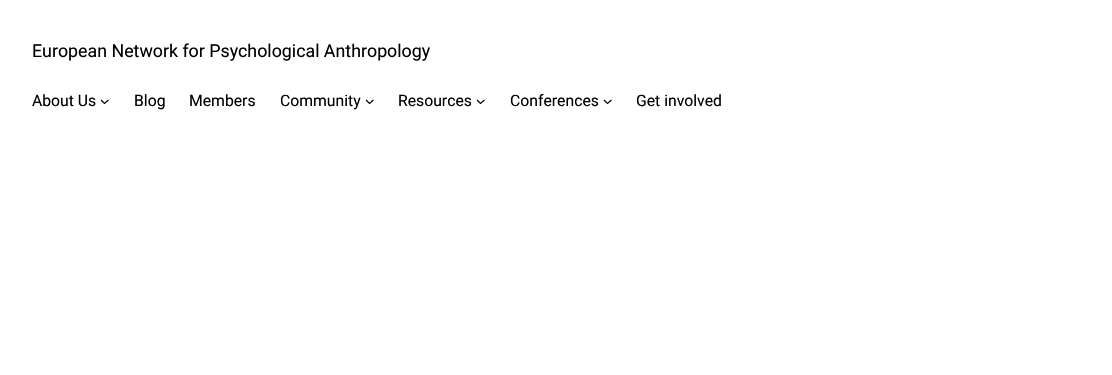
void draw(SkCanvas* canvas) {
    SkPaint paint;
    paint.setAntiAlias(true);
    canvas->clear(0xFFFFFFFF);
    SkFont font1(fontMgr->matchFamilyStyle("Roboto", SkFontStyle::Normal()), 17.8f);
    font1.setSubpixel(true);
    paint.setColor(0xFF000000);
    canvas->drawString("European Network for Psychological Anthropology", 32, 57, font1, paint);
    SkFont font2(fontMgr->matchFamilyStyle("Roboto", SkFontStyle::Normal()), 15.75f);
    font2.setSubpixel(true);
    canvas->drawString("About Us", 32, 106, font2, paint);
    paint.setStyle(SkPaint::kStroke_Style);
    paint.setStrokeWidth(1.2f);
    canvas->drawPath(SkPathBuilder().moveTo(101, 100).lineTo(104.5f, 103.5f).lineTo(108.5f, 100).detach(), paint);
    paint.setStyle(SkPaint::kFill_Style);
    canvas->drawString("Blog", 134, 106, font2, paint);
    canvas->drawString("Members", 189, 106, font2, paint);
    canvas->drawString("Community", 280, 106, font2, paint);
    paint.setStyle(SkPaint::kStroke_Style);
    canvas->drawPath(SkPathBuilder().moveTo(366, 100).lineTo(369.5f, 103.5f).lineTo(373.5f, 100).detach(), paint);
    paint.setStyle(SkPaint::kFill_Style);
    canvas->drawString("Resources", 398, 106, font2, paint);
    paint.setStyle(SkPaint::kStroke_Style);
    canvas->drawPath(SkPathBuilder().moveTo(477, 100).lineTo(480.5f, 103.5f).lineTo(484.5f, 100).detach(), paint);
    paint.setStyle(SkPaint::kFill_Style);
    canvas->drawString("Conferences", 510, 106, font2, paint);
    paint.setStyle(SkPaint::kStroke_Style);
    canvas->drawPath(SkPathBuilder().moveTo(604, 100).lineTo(607.5f, 103.5f).lineTo(611.5f, 100).detach(), paint);
    paint.setStyle(SkPaint::kFill_Style);
    canvas->drawString("Get involved", 636, 106, font2, paint);
}
